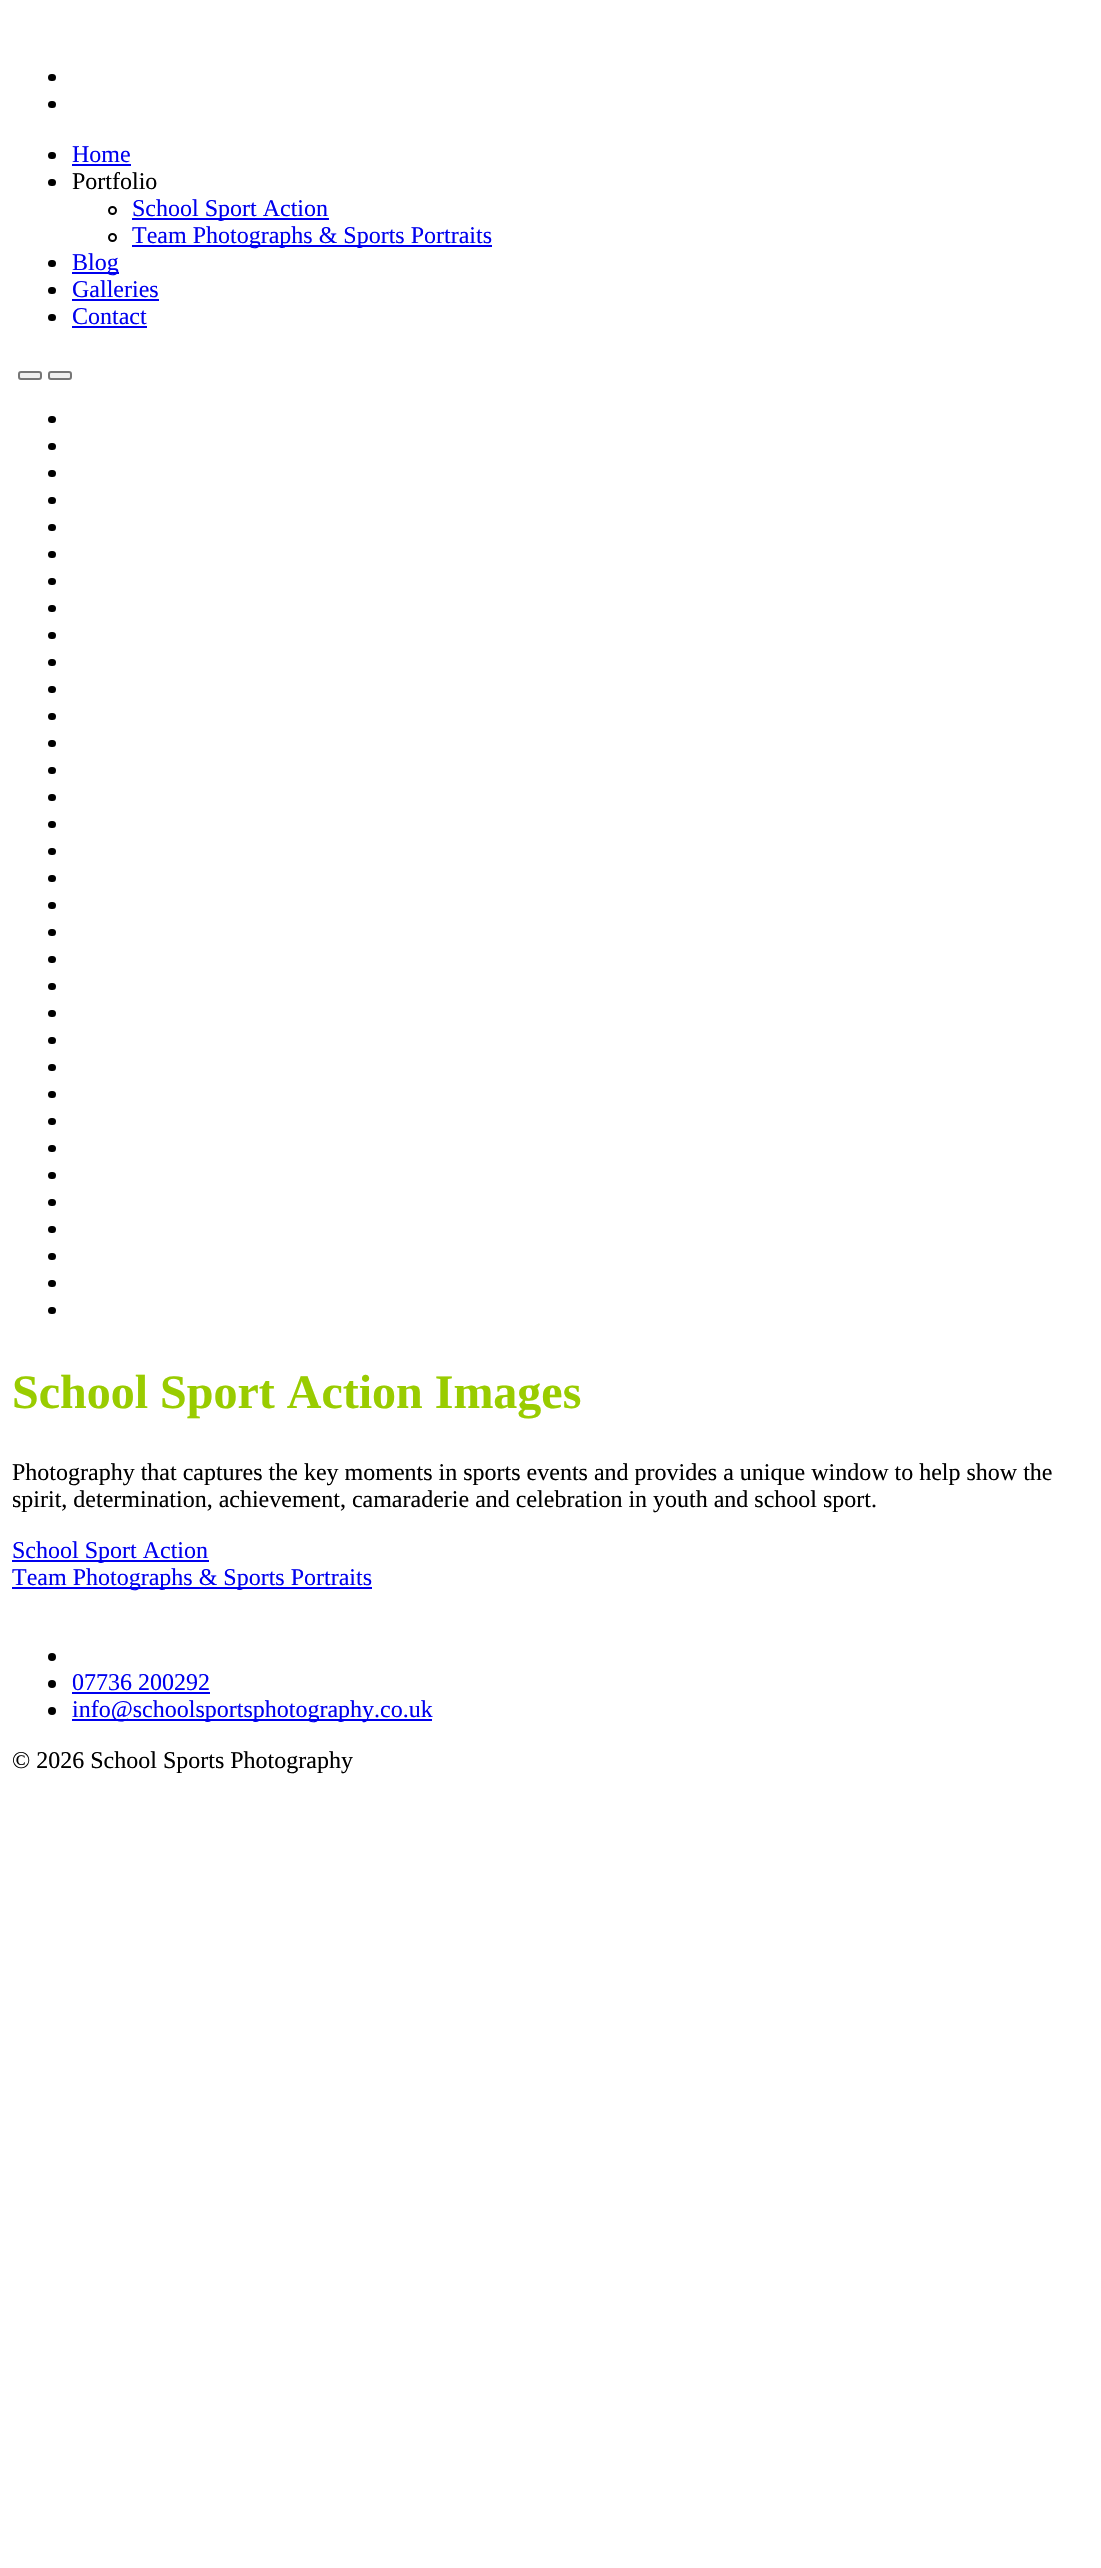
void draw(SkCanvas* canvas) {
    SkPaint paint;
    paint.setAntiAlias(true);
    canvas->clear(0xFFFFFFFF);
    paint.setColor(0xFF000000);
    canvas->drawRoundRect(SkRect::MakeXYWH(48, 74, 8, 7), 3.5f, 3.5f, paint);
    canvas->drawRoundRect(SkRect::MakeXYWH(48, 101, 8, 7), 3.5f, 3.5f, paint);
    canvas->drawRoundRect(SkRect::MakeXYWH(48, 152, 8, 7), 3.5f, 3.5f, paint);
    SkFont font1(fontMgr->matchFamilyStyle("Liberation Serif", SkFontStyle::Normal()), 24);
    font1.setSubpixel(true);
    paint.setColor(0xFF0000EE);
    canvas->drawString("Home", 72, 162, font1, paint);
    canvas->drawRect(SkRect::MakeXYWH(72, 164, 59, 2), paint);
    paint.setColor(0xFF000000);
    canvas->drawRoundRect(SkRect::MakeXYWH(48, 179, 8, 7), 3.5f, 3.5f, paint);
    canvas->drawString("Portfolio", 72, 189, font1, paint);
    paint.setStyle(SkPaint::kStroke_Style);
    paint.setStrokeWidth(2);
    canvas->drawCircle(112.5f, 210.5f, 3.5f, paint);
    paint.setStyle(SkPaint::kFill_Style);
    paint.setColor(0xFF0000EE);
    canvas->drawRect(SkRect::MakeXYWH(132, 218, 197, 2), paint);
    canvas->drawString("School Sport Action", 132, 216, font1, paint);
    paint.setStyle(SkPaint::kStroke_Style);
    paint.setColor(0xFF000000);
    canvas->drawCircle(112.5f, 237.5f, 3.5f, paint);
    paint.setStyle(SkPaint::kFill_Style);
    paint.setColor(0xFF0000EE);
    canvas->drawRect(SkRect::MakeXYWH(132, 245, 360, 2), paint);
    canvas->drawString("Team Photographs & Sports Portraits", 132, 243, font1, paint);
    paint.setColor(0xFF000000);
    canvas->drawRoundRect(SkRect::MakeXYWH(48, 260, 8, 7), 3.5f, 3.5f, paint);
    paint.setColor(0xFF0000EE);
    canvas->drawRect(SkRect::MakeXYWH(72, 272, 47, 2), paint);
    canvas->drawString("Blog", 72, 270, font1, paint);
    paint.setColor(0xFF000000);
    canvas->drawRoundRect(SkRect::MakeXYWH(48, 287, 8, 7), 3.5f, 3.5f, paint);
    paint.setColor(0xFF0000EE);
    canvas->drawString("Galleries", 72, 297, font1, paint);
    canvas->drawRect(SkRect::MakeXYWH(72, 299, 87, 2), paint);
    paint.setColor(0xFF000000);
    canvas->drawRoundRect(SkRect::MakeXYWH(48, 314, 8, 7), 3.5f, 3.5f, paint);
    paint.setColor(0xFF0000EE);
    canvas->drawString("Contact", 72, 324, font1, paint);
    canvas->drawRect(SkRect::MakeXYWH(72, 326, 75, 2), paint);
    paint.setColor(0xFFEFEFEF);
    canvas->drawRoundRect(SkRect::MakeXYWH(19, 372, 22, 7), 2, 2, paint);
    paint.setStyle(SkPaint::kStroke_Style);
    paint.setColor(0xFF767676);
    canvas->drawRoundRect(SkRect::MakeXYWH(19, 372, 22, 7), 2, 2, paint);
    paint.setStyle(SkPaint::kFill_Style);
    paint.setColor(0xFFEFEFEF);
    canvas->drawRoundRect(SkRect::MakeXYWH(49, 372, 22, 7), 2, 2, paint);
    paint.setStyle(SkPaint::kStroke_Style);
    paint.setColor(0xFF767676);
    canvas->drawRoundRect(SkRect::MakeXYWH(49, 372, 22, 7), 2, 2, paint);
    paint.setStyle(SkPaint::kFill_Style);
    paint.setColor(0xFF000000);
    canvas->drawRoundRect(SkRect::MakeXYWH(48, 416, 8, 7), 3.5f, 3.5f, paint);
    canvas->drawRoundRect(SkRect::MakeXYWH(48, 443, 8, 7), 3.5f, 3.5f, paint);
    canvas->drawRoundRect(SkRect::MakeXYWH(48, 470, 8, 7), 3.5f, 3.5f, paint);
    canvas->drawRoundRect(SkRect::MakeXYWH(48, 497, 8, 7), 3.5f, 3.5f, paint);
    canvas->drawRoundRect(SkRect::MakeXYWH(48, 524, 8, 7), 3.5f, 3.5f, paint);
    canvas->drawRoundRect(SkRect::MakeXYWH(48, 551, 8, 7), 3.5f, 3.5f, paint);
    canvas->drawRoundRect(SkRect::MakeXYWH(48, 578, 8, 7), 3.5f, 3.5f, paint);
    canvas->drawRoundRect(SkRect::MakeXYWH(48, 605, 8, 7), 3.5f, 3.5f, paint);
    canvas->drawRoundRect(SkRect::MakeXYWH(48, 632, 8, 7), 3.5f, 3.5f, paint);
    canvas->drawRoundRect(SkRect::MakeXYWH(48, 659, 8, 7), 3.5f, 3.5f, paint);
    canvas->drawRoundRect(SkRect::MakeXYWH(48, 686, 8, 7), 3.5f, 3.5f, paint);
    canvas->drawRoundRect(SkRect::MakeXYWH(48, 713, 8, 7), 3.5f, 3.5f, paint);
    canvas->drawRoundRect(SkRect::MakeXYWH(48, 740, 8, 7), 3.5f, 3.5f, paint);
    canvas->drawRoundRect(SkRect::MakeXYWH(48, 767, 8, 7), 3.5f, 3.5f, paint);
    canvas->drawRoundRect(SkRect::MakeXYWH(48, 794, 8, 7), 3.5f, 3.5f, paint);
    canvas->drawRoundRect(SkRect::MakeXYWH(48, 821, 8, 7), 3.5f, 3.5f, paint);
    canvas->drawRoundRect(SkRect::MakeXYWH(48, 848, 8, 7), 3.5f, 3.5f, paint);
    canvas->drawRoundRect(SkRect::MakeXYWH(48, 875, 8, 7), 3.5f, 3.5f, paint);
    canvas->drawRoundRect(SkRect::MakeXYWH(48, 902, 8, 7), 3.5f, 3.5f, paint);
    canvas->drawRoundRect(SkRect::MakeXYWH(48, 929, 8, 7), 3.5f, 3.5f, paint);
    canvas->drawRoundRect(SkRect::MakeXYWH(48, 956, 8, 7), 3.5f, 3.5f, paint);
    canvas->drawRoundRect(SkRect::MakeXYWH(48, 983, 8, 7), 3.5f, 3.5f, paint);
    canvas->drawRoundRect(SkRect::MakeXYWH(48, 1010, 8, 7), 3.5f, 3.5f, paint);
    canvas->drawRoundRect(SkRect::MakeXYWH(48, 1037, 8, 7), 3.5f, 3.5f, paint);
    canvas->drawRoundRect(SkRect::MakeXYWH(48, 1064, 8, 7), 3.5f, 3.5f, paint);
    canvas->drawRoundRect(SkRect::MakeXYWH(48, 1091, 8, 7), 3.5f, 3.5f, paint);
    canvas->drawRoundRect(SkRect::MakeXYWH(48, 1118, 8, 7), 3.5f, 3.5f, paint);
    canvas->drawRoundRect(SkRect::MakeXYWH(48, 1145, 8, 7), 3.5f, 3.5f, paint);
    canvas->drawRoundRect(SkRect::MakeXYWH(48, 1172, 8, 7), 3.5f, 3.5f, paint);
    canvas->drawRoundRect(SkRect::MakeXYWH(48, 1199, 8, 7), 3.5f, 3.5f, paint);
    canvas->drawRoundRect(SkRect::MakeXYWH(48, 1226, 8, 7), 3.5f, 3.5f, paint);
    canvas->drawRoundRect(SkRect::MakeXYWH(48, 1253, 8, 7), 3.5f, 3.5f, paint);
    canvas->drawRoundRect(SkRect::MakeXYWH(48, 1280, 8, 7), 3.5f, 3.5f, paint);
    canvas->drawRoundRect(SkRect::MakeXYWH(48, 1307, 8, 7), 3.5f, 3.5f, paint);
    SkFont font2(fontMgr->matchFamilyStyle("Liberation Serif", SkFontStyle::Bold()), 48);
    font2.setSubpixel(true);
    paint.setColor(0xFF99CC00);
    canvas->drawString("School Sport Action Images", 12, 1408, font2, paint);
    paint.setColor(0xFF000000);
    canvas->drawString("Photography that captures the key moments in sports events and provides a unique window to help show the", 12, 1480, font1, paint);
    canvas->drawString("spirit, determination, achievement, camaraderie and celebration in youth and school sport.", 12, 1507, font1, paint);
    paint.setColor(0xFF0000EE);
    canvas->drawRect(SkRect::MakeXYWH(12, 1560, 197, 2), paint);
    canvas->drawString("School Sport Action", 12, 1558, font1, paint);
    canvas->drawRect(SkRect::MakeXYWH(12, 1587, 360, 2), paint);
    canvas->drawString("Team Photographs & Sports Portraits", 12, 1585, font1, paint);
    paint.setColor(0xFF000000);
    canvas->drawCircle(52, 1657, 4, paint);
    canvas->drawCircle(52, 1684, 4, paint);
    paint.setColor(0xFF0000EE);
    canvas->drawString("07736 200292", 72, 1690, font1, paint);
    canvas->drawRect(SkRect::MakeXYWH(72, 1692, 138, 2), paint);
    paint.setColor(0xFF000000);
    canvas->drawCircle(52, 1711, 4, paint);
    paint.setColor(0xFF0000EE);
    canvas->drawRect(SkRect::MakeXYWH(72, 1719, 360, 2), paint);
    canvas->drawString("info@schoolsportsphotography.co.uk", 72, 1717, font1, paint);
    paint.setColor(0xFF000000);
    canvas->drawString("© 2026 School Sports Photography", 12, 1768, font1, paint);
}
